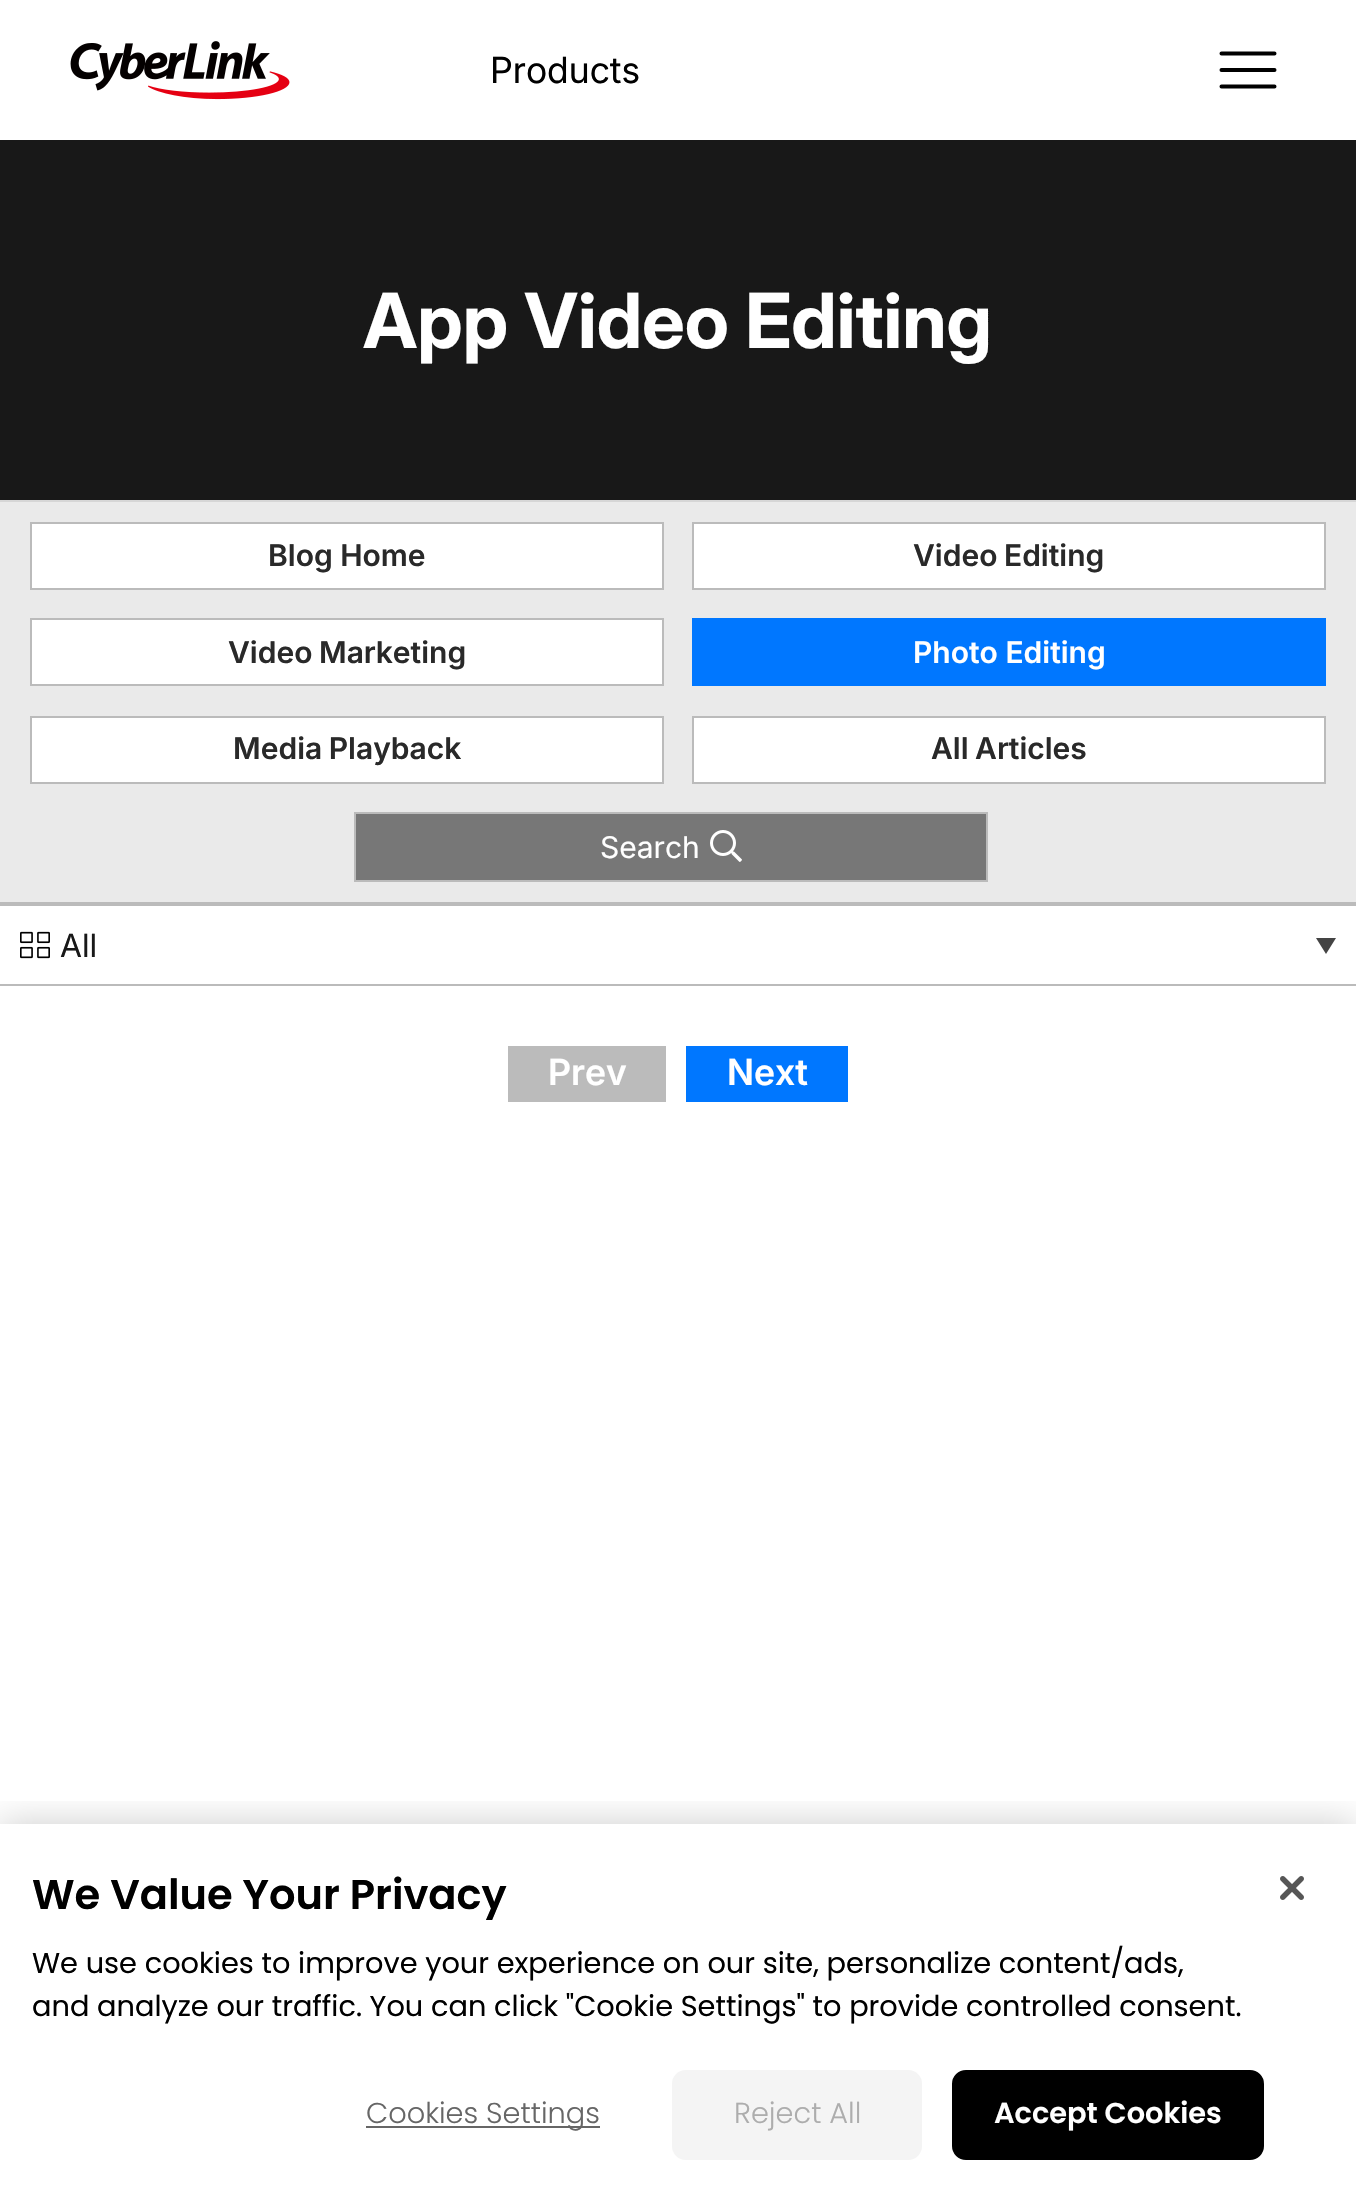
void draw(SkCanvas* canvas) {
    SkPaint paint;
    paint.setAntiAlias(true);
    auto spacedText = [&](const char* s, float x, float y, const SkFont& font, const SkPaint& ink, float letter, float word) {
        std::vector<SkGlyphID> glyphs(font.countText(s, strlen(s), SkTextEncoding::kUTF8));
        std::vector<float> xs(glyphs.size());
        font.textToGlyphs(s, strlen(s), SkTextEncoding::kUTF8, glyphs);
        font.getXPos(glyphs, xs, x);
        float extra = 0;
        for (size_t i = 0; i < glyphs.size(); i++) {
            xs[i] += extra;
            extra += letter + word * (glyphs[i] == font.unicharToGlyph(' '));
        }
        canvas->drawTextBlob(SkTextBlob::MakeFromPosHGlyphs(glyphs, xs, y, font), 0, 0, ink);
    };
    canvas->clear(0xFFFFFFFF);
    canvas->drawImageRect(SkImages::DeferredFromEncodedData(SkData::MakeFromFileName("img1.png")), SkRect::MakeXYWH(70, 41, 220, 59), SkSamplingOptions());
    SkFont font1(fontMgr->matchFamilyStyle("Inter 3", SkFontStyle::Normal()), 36);
    font1.setSubpixel(true);
    paint.setColor(0xFF000000);
    canvas->drawString("Products", 490, 83, font1, paint);
    paint.setStyle(SkPaint::kStroke_Style);
    paint.setStrokeWidth(4);
    paint.setStrokeCap(SkPaint::kRound_Cap);
    canvas->drawPath(SkPathBuilder().moveTo(1221.5f, 53.5f).lineTo(1274.5f, 53.5f).moveTo(1221.5f, 70).lineTo(1274.5f, 70).moveTo(1221.5f, 86.5f).lineTo(1274.5f, 86.5f).detach(), paint);
    paint.setStyle(SkPaint::kFill_Style);
    paint.setColor(0xFF181818);
    canvas->drawRect(SkRect::MakeXYWH(0, 140, 1356, 360), paint);
    SkFont font2(fontMgr->matchFamilyStyle("Inter", SkFontStyle::Bold()), 76);
    font2.setSubpixel(true);
    paint.setColor(0xFFFFFFFF);
    canvas->drawString("App Video Editing", 363, 348, font2, paint);
    paint.setColor(0xFFEAEAEA);
    canvas->drawRect(SkRect::MakeXYWH(0, 502, 1356, 400), paint);
    paint.setColor(0xFFD6D6D6);
    canvas->drawRect(SkRect::MakeXYWH(0, 500, 1356, 2), paint);
    paint.setColor(0xFFFFFFFF);
    canvas->drawRect(SkRect::MakeXYWH(31, 523, 632, 66), paint);
    paint.setStyle(SkPaint::kStroke_Style);
    paint.setStrokeWidth(2);
    paint.setStrokeCap(SkPaint::kButt_Cap);
    paint.setColor(0xFFBBBBBB);
    canvas->drawRect(SkRect::MakeXYWH(31, 523, 632, 66), paint);
    SkFont font3(fontMgr->matchFamilyStyle("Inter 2", SkFontStyle(600, SkFontStyle::kNormal_Width, SkFontStyle::kUpright_Slant)), 30);
    font3.setSubpixel(true);
    paint.setStyle(SkPaint::kFill_Style);
    paint.setColor(0xFF292929);
    canvas->drawString("Blog Home", 268, 566, font3, paint);
    paint.setColor(0xFFFFFFFF);
    canvas->drawRect(SkRect::MakeXYWH(693, 523, 632, 66), paint);
    paint.setStyle(SkPaint::kStroke_Style);
    paint.setColor(0xFFBBBBBB);
    canvas->drawRect(SkRect::MakeXYWH(693, 523, 632, 66), paint);
    paint.setStyle(SkPaint::kFill_Style);
    paint.setColor(0xFF292929);
    spacedText("Video Editing", 913, 566, font3, paint, 0, -1);
    paint.setColor(0xFFFFFFFF);
    canvas->drawRect(SkRect::MakeXYWH(31, 619, 632, 66), paint);
    paint.setStyle(SkPaint::kStroke_Style);
    paint.setColor(0xFFBBBBBB);
    canvas->drawRect(SkRect::MakeXYWH(31, 619, 632, 66), paint);
    paint.setStyle(SkPaint::kFill_Style);
    paint.setColor(0xFF292929);
    spacedText("Video Marketing", 228, 663, font3, paint, 0, -1);
    paint.setColor(0xFF0077FF);
    canvas->drawRect(SkRect::MakeXYWH(692, 618, 634, 68), paint);
    paint.setColor(0xFFFFFFFF);
    canvas->drawString("Photo Editing", 913, 663, font3, paint);
    canvas->drawRect(SkRect::MakeXYWH(31, 717, 632, 66), paint);
    paint.setStyle(SkPaint::kStroke_Style);
    paint.setColor(0xFFBBBBBB);
    canvas->drawRect(SkRect::MakeXYWH(31, 717, 632, 66), paint);
    paint.setStyle(SkPaint::kFill_Style);
    paint.setColor(0xFF292929);
    spacedText("Media Playback", 233, 759, font3, paint, 0, -1);
    paint.setColor(0xFFFFFFFF);
    canvas->drawRect(SkRect::MakeXYWH(693, 717, 632, 66), paint);
    paint.setStyle(SkPaint::kStroke_Style);
    paint.setColor(0xFFBBBBBB);
    canvas->drawRect(SkRect::MakeXYWH(693, 717, 632, 66), paint);
    paint.setStyle(SkPaint::kFill_Style);
    paint.setColor(0xFF292929);
    spacedText("All Articles", 931, 759, font3, paint, 0, -1);
    paint.setColor(0xFF777777);
    canvas->drawRect(SkRect::MakeXYWH(355, 813, 632, 68), paint);
    paint.setStyle(SkPaint::kStroke_Style);
    paint.setColor(0xFFBBBBBB);
    canvas->drawRect(SkRect::MakeXYWH(355, 813, 632, 68), paint);
    SkFont font4(fontMgr->matchFamilyStyle("Inter 2", SkFontStyle::Normal()), 30);
    font4.setSubpixel(true);
    paint.setStyle(SkPaint::kFill_Style);
    paint.setColor(0xFFFFFFFF);
    canvas->drawString("Search", 600, 858, font4, paint);
    canvas->drawImageRect(SkImages::DeferredFromEncodedData(SkData::MakeFromFileName("img2.png")), SkRect::MakeXYWH(710, 830, 32, 32), SkSamplingOptions());
    paint.setColor(0xFFBBBBBB);
    canvas->drawRect(SkRect::MakeXYWH(0, 902, 1356, 4), paint);
    canvas->drawRect(SkRect::MakeXYWH(0, 984, 1356, 2), paint);
    canvas->drawImageRect(SkImages::DeferredFromEncodedData(SkData::MakeFromFileName("img3.png")), SkRect::MakeXYWH(20, 931, 30, 28), SkSamplingOptions());
    SkFont font5(fontMgr->matchFamilyStyle("Inter", SkFontStyle::Normal()), 32);
    font5.setSubpixel(true);
    paint.setColor(0xFF181818);
    canvas->drawString("All", 60, 957, font5, paint);
    paint.setColor(0xFF444444);
    canvas->drawPath(SkPathBuilder().moveTo(1316, 938).lineTo(1336, 938).lineTo(1326, 954).close().detach(), paint);
    paint.setColor(0xFFBBBBBB);
    canvas->drawRect(SkRect::MakeXYWH(508, 1046, 158, 56), paint);
    SkFont font6(fontMgr->matchFamilyStyle("Inter", SkFontStyle(600, SkFontStyle::kNormal_Width, SkFontStyle::kUpright_Slant)), 36);
    font6.setSubpixel(true);
    paint.setColor(0xFFFFFFFF);
    canvas->drawString("Prev", 548, 1085, font6, paint);
    paint.setColor(0xFF0077FF);
    canvas->drawRect(SkRect::MakeXYWH(686, 1046, 162, 56), paint);
    paint.setColor(0xFFFFFFFF);
    canvas->drawString("Next", 727, 1085, font6, paint);
    canvas->save();
    canvas->clipRect(SkRect::MakeXYWH(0, 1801, 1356, 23));
    paint.setColor(0x33000000);
    paint.setMaskFilter(SkMaskFilter::MakeBlur(kNormal_SkBlurStyle, 18));
    canvas->drawRect(SkRect::MakeXYWH(0, 1824, 1356, 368), paint);
    paint.setMaskFilter(nullptr);
    canvas->restore();
    SkFont font7(fontMgr->matchFamilyStyle("Poppins", SkFontStyle(600, SkFontStyle::kNormal_Width, SkFontStyle::kUpright_Slant)), 41.6f);
    font7.setSubpixel(true);
    paint.setColor(0xFF000000);
    canvas->drawString("We Value Your Privacy", 32, 1909, font7, paint);
    SkFont font8(fontMgr->matchFamilyStyle("Poppins", SkFontStyle::Normal()), 28.8f);
    font8.setSubpixel(true);
    canvas->drawString("We use cookies to improve your experience on our site, personalize content/ads,", 32, 1973, font8, paint);
    canvas->drawString("and analyze our traffic. You can click \"Cookie Settings\" to provide controlled consent.", 32, 2016, font8, paint);
    paint.setColor(0xFF666666);
    canvas->drawRect(SkRect::MakeXYWH(366, 2126, 234, 2), paint);
    SkFont font9(fontMgr->matchFamilyStyle("Poppins", SkFontStyle(300, SkFontStyle::kNormal_Width, SkFontStyle::kUpright_Slant)), 28.8f);
    font9.setSubpixel(true);
    canvas->drawString("Cookies Settings", 366, 2123, font9, paint);
    paint.setColor(0xFFF4F4F4);
    canvas->drawRoundRect(SkRect::MakeXYWH(672, 2070, 250, 90), 14, 14, paint);
    paint.setColor(0xFFADADAD);
    canvas->drawString("Reject All", 734, 2123, font9, paint);
    paint.setColor(0xFF000000);
    canvas->drawRoundRect(SkRect::MakeXYWH(953, 2071, 310, 88), 13, 13, paint);
    paint.setStyle(SkPaint::kStroke_Style);
    canvas->drawRoundRect(SkRect::MakeXYWH(953, 2071, 310, 88), 13, 13, paint);
    SkFont font10(fontMgr->matchFamilyStyle("Poppins", SkFontStyle(600, SkFontStyle::kNormal_Width, SkFontStyle::kUpright_Slant)), 28.8f);
    font10.setSubpixel(true);
    paint.setStyle(SkPaint::kFill_Style);
    paint.setColor(0xFFFFFFFF);
    canvas->drawString("Accept Cookies", 994, 2123, font10, paint);
    canvas->drawImageRect(SkImages::DeferredFromEncodedData(SkData::MakeFromFileName("img4.png")), SkRect::MakeXYWH(1280, 1876, 24, 24), SkSamplingOptions());
}
